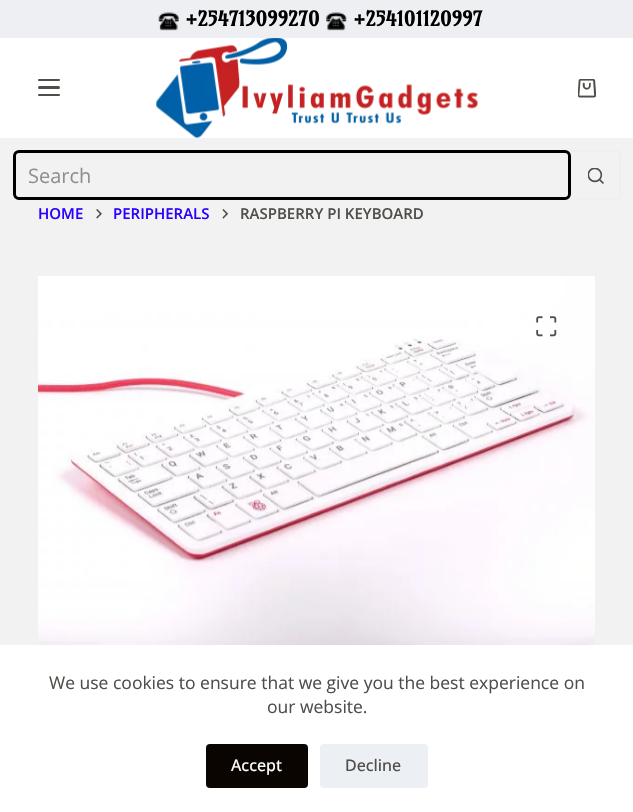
void draw(SkCanvas* canvas) {
    SkPaint paint;
    paint.setAntiAlias(true);
    canvas->clear(0xFFF2F2F2);
    paint.setColor(0xFFEDEFF2);
    canvas->drawRect(SkRect::MakeXYWH(0, 0, 633, 38), paint);
    canvas->drawImageRect(SkImages::DeferredFromEncodedData(SkData::MakeFromFileName("img1.png")), SkRect::MakeXYWH(158, 12, 21, 19), SkSamplingOptions());
    SkFont font1(fontMgr->matchFamilyStyle("Amarante", SkFontStyle::Bold()), 20);
    font1.setSubpixel(true);
    paint.setColor(0xFF000000);
    canvas->drawString("+254713099270", 185, 26, font1, paint);
    canvas->drawImageRect(SkImages::DeferredFromEncodedData(SkData::MakeFromFileName("img2.png")), SkRect::MakeXYWH(326, 12, 21, 19), SkSamplingOptions());
    canvas->drawString("+254101120997", 353, 26, font1, paint);
    paint.setColor(0xFFFFFFFF);
    canvas->drawRect(SkRect::MakeXYWH(0, 38, 633, 100), paint);
    paint.setColor(0xFF504E4A);
    canvas->drawRoundRect(SkRect::MakeXYWH(38, 79, 22, 2), 1, 1, paint);
    canvas->drawRoundRect(SkRect::MakeXYWH(38, 86, 22, 3), 1.5f, 1.5f, paint);
    canvas->drawRoundRect(SkRect::MakeXYWH(38, 94, 22, 2), 1, 1, paint);
    canvas->drawImageRect(SkImages::DeferredFromEncodedData(SkData::MakeFromFileName("img3.png")), SkRect::MakeXYWH(156, 38, 322, 100), SkSamplingOptions());
    canvas->drawImageRect(SkImages::DeferredFromEncodedData(SkData::MakeFromFileName("img4.png")), SkRect::MakeXYWH(578, 79, 18, 19), SkSamplingOptions());
    paint.setStyle(SkPaint::kStroke_Style);
    paint.setStrokeWidth(3);
    paint.setColor(0xFF000000);
    canvas->drawRoundRect(SkRect::MakeXYWH(14.5f, 151.5f, 555, 47), 4.5f, 4.5f, paint);
    SkFont font2(fontMgr->matchFamilyStyle("Open Sans", SkFontStyle::Normal()), 20);
    font2.setSubpixel(true);
    paint.setStyle(SkPaint::kFill_Style);
    paint.setColor(0xFF91908D);
    canvas->drawString("Search", 28, 183, font2, paint);
    paint.setColor(0xFFEDEFF2);
    canvas->drawPath(SkPathBuilder(SkPathFillType::kEvenOdd).moveTo(571, 150).lineTo(618, 150).cubicTo(620, 150, 621, 152, 621, 154).lineTo(621, 196).cubicTo(621, 198, 620, 200, 618, 200).lineTo(571, 200).close().moveTo(571, 152).lineTo(618, 152).cubicTo(618, 152, 619, 153, 619, 154).lineTo(619, 196).cubicTo(619, 197, 618, 198, 618, 198).lineTo(571, 198).close().detach(), paint);
    canvas->drawImageRect(SkImages::DeferredFromEncodedData(SkData::MakeFromFileName("img5.png")), SkRect::MakeXYWH(588, 168, 16, 16), SkSamplingOptions());
    SkFont font3(fontMgr->matchFamilyStyle("Open Sans", SkFontStyle(600, SkFontStyle::kNormal_Width, SkFontStyle::kUpright_Slant)), 15);
    font3.setSubpixel(true);
    paint.setColor(0xFF2A00FF);
    canvas->drawString("HOME", 38, 219, font3, paint);
    canvas->drawImageRect(SkImages::DeferredFromEncodedData(SkData::MakeFromFileName("img6.png")), SkRect::MakeXYWH(96, 209, 6, 10), SkSamplingOptions());
    canvas->drawString("PERIPHERALS", 113, 219, font3, paint);
    canvas->drawImageRect(SkImages::DeferredFromEncodedData(SkData::MakeFromFileName("img7.png")), SkRect::MakeXYWH(222, 209, 7, 10), SkSamplingOptions());
    paint.setColor(0xFF504E4A);
    canvas->drawString("RASPBERRY PI KEYBOARD", 240, 219, font3, paint);
    canvas->drawImageRect(SkImages::DeferredFromEncodedData(SkData::MakeFromFileName("img8.png")), SkRect::MakeXYWH(38, 276, 557, 369), SkSamplingOptions());
    canvas->drawImageRect(SkImages::DeferredFromEncodedData(SkData::MakeFromFileName("img9.png")), SkRect::MakeXYWH(536, 316, 21, 21), SkSamplingOptions());
    paint.setColor(0xFFFFFFFF);
    canvas->drawRect(SkRect::MakeXYWH(0, 645, 633, 167), paint);
    SkFont font4(fontMgr->matchFamilyStyle("Open Sans", SkFontStyle::Normal()), 17.5f);
    font4.setSubpixel(true);
    paint.setColor(0xFF504E4A);
    canvas->drawString("We use cookies to ensure that we give you the best experience on", 49, 689, font4, paint);
    canvas->drawString("our website.", 267, 713, font4, paint);
    paint.setColor(0xFF0A0500);
    canvas->drawRoundRect(SkRect::MakeXYWH(206, 744, 102, 44), 4, 4, paint);
    SkFont font5(fontMgr->matchFamilyStyle("Open Sans", SkFontStyle(500, SkFontStyle::kNormal_Width, SkFontStyle::kUpright_Slant)), 16);
    font5.setSubpixel(true);
    paint.setColor(0xFFFFFFFF);
    canvas->drawString("Accept", 231, 771, font5, paint);
    paint.setColor(0xFFECEFF3);
    canvas->drawRoundRect(SkRect::MakeXYWH(320, 744, 108, 44), 4, 4, paint);
    paint.setColor(0xFF504E4A);
    canvas->drawString("Decline", 345, 771, font5, paint);
}
